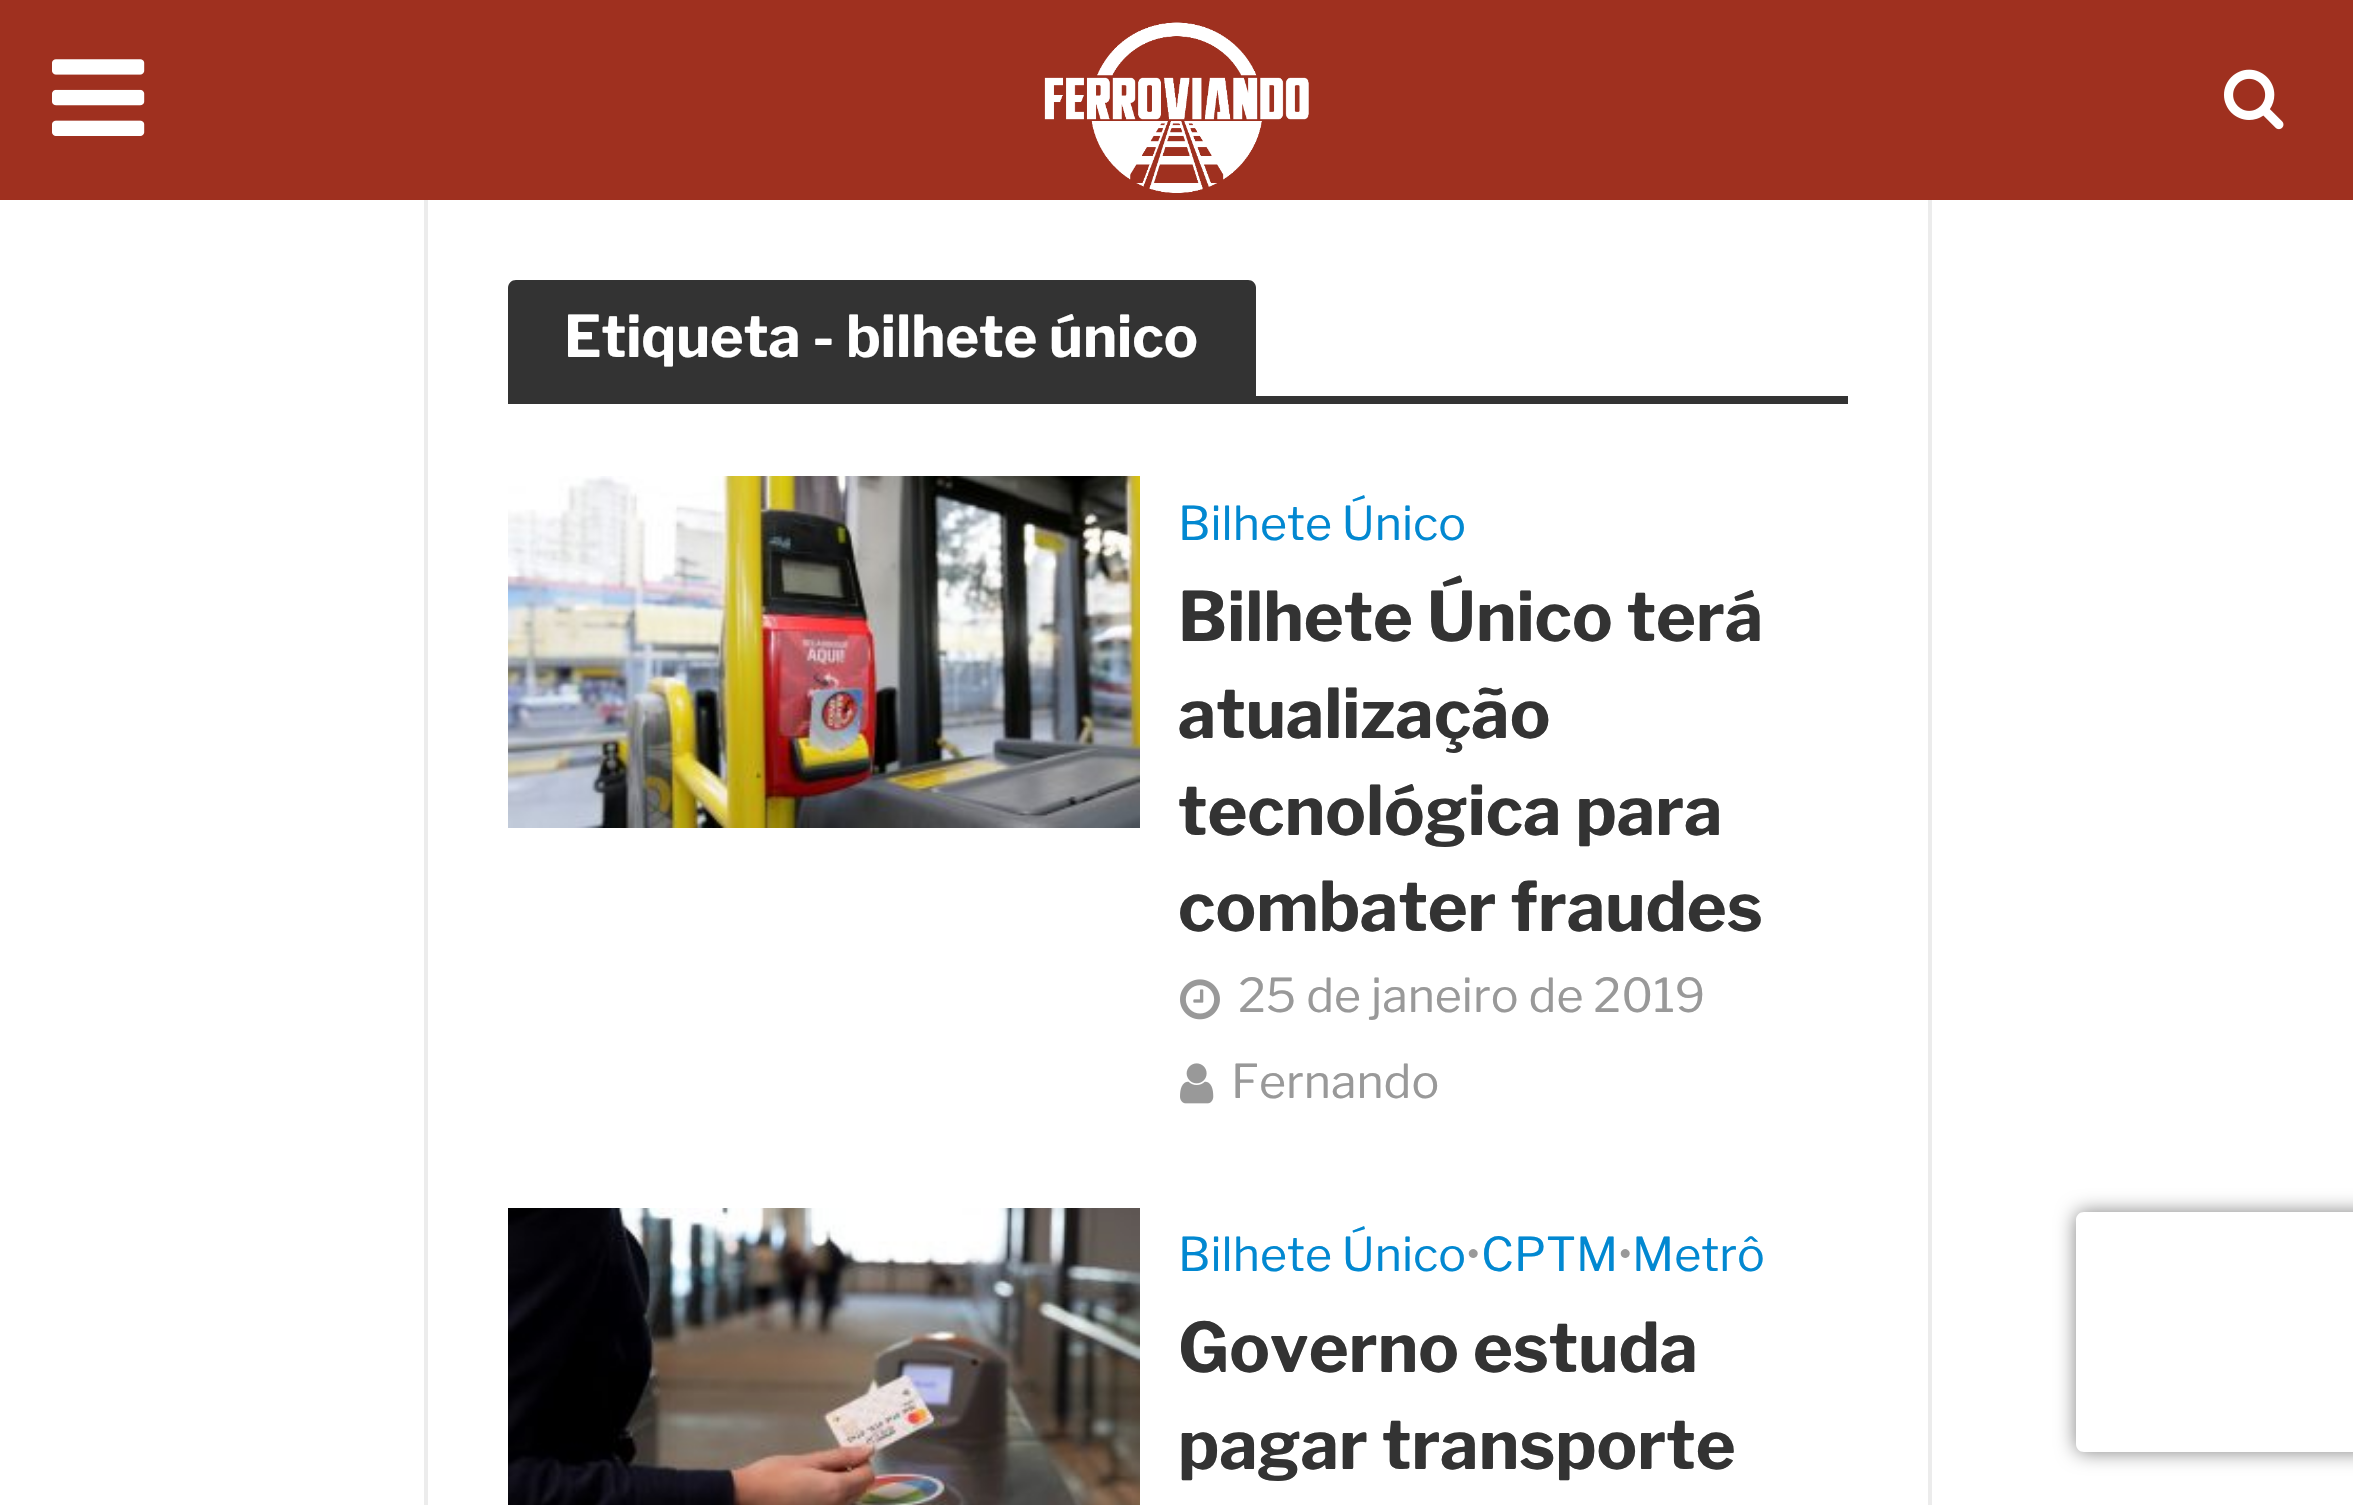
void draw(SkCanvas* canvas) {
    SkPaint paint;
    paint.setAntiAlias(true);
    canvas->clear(0xFFFFFFFF);
    paint.setStyle(SkPaint::kStroke_Style);
    paint.setStrokeWidth(4);
    paint.setColor(0xFFECECEC);
    canvas->drawRect(SkRect::MakeXYWH(426, 198, 1504, 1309), paint);
    paint.setStyle(SkPaint::kFill_Style);
    paint.setColor(0xFF9F301F);
    canvas->drawRect(SkRect::MakeXYWH(0, 0, 2353, 200), paint);
    canvas->drawImageRect(SkImages::DeferredFromEncodedData(SkData::MakeFromFileName("img1.png")), SkRect::MakeXYWH(52, 59, 93, 77), SkSamplingOptions());
    canvas->drawImageRect(SkImages::DeferredFromEncodedData(SkData::MakeFromFileName("img2.png")), SkRect::MakeXYWH(1044, 22, 265, 171), SkSamplingOptions());
    canvas->drawImageRect(SkImages::DeferredFromEncodedData(SkData::MakeFromFileName("img3.png")), SkRect::MakeXYWH(2224, 69, 60, 61), SkSamplingOptions());
    paint.setColor(0xFF333333);
    canvas->drawPath(SkPathBuilder().moveTo(516, 280).lineTo(1248, 280).cubicTo(1252.5f, 280, 1256, 283.5f, 1256, 288).lineTo(1256, 396).lineTo(508, 396).lineTo(508, 288).cubicTo(508, 283.5f, 511.5f, 280, 516, 280).close().detach(), paint);
    SkFont font1(fontMgr->matchFamilyStyle("Libre Franklin", SkFontStyle::Bold()), 57.25f);
    font1.setSubpixel(true);
    paint.setColor(0xFFFFFFFF);
    canvas->drawString("Etiqueta - bilhete único", 564, 357, font1, paint);
    paint.setColor(0xFF333333);
    canvas->drawRect(SkRect::MakeXYWH(508, 396, 1340, 8), paint);
    canvas->drawImageRect(SkImages::DeferredFromEncodedData(SkData::MakeFromFileName("img4.png")), SkRect::MakeXYWH(508, 476, 632, 352), SkSamplingOptions());
    SkFont font2(fontMgr->matchFamilyStyle("Libre Franklin", SkFontStyle::Normal()), 46.5f);
    font2.setSubpixel(true);
    paint.setColor(0xFF0288D1);
    canvas->drawString("Bilhete Único", 1178, 540, font2, paint);
    SkFont font3(fontMgr->matchFamilyStyle("Libre Franklin", SkFontStyle::Bold()), 68);
    font3.setSubpixel(true);
    paint.setColor(0xFF333333);
    canvas->drawString("Bilhete Único terá", 1178, 641, font3, paint);
    canvas->drawString("atualização", 1178, 738, font3, paint);
    canvas->drawString("tecnológica para", 1178, 835, font3, paint);
    canvas->drawString("combater fraudes", 1178, 931, font3, paint);
    canvas->drawImageRect(SkImages::DeferredFromEncodedData(SkData::MakeFromFileName("img5.png")), SkRect::MakeXYWH(1180, 979, 40, 41), SkSamplingOptions());
    paint.setColor(0xFF999999);
    canvas->drawString("25 de janeiro de 2019", 1238, 1012, font2, paint);
    canvas->drawImageRect(SkImages::DeferredFromEncodedData(SkData::MakeFromFileName("img6.png")), SkRect::MakeXYWH(1180, 1063, 34, 41), SkSamplingOptions());
    canvas->drawString("Fernando", 1231, 1098, font2, paint);
    canvas->drawImageRect(SkImages::DeferredFromEncodedData(SkData::MakeFromFileName("img7.png")), SkRect::MakeXYWH(508, 1208, 632, 297), SkSamplingOptions());
    paint.setColor(0xFF0288D1);
    canvas->drawString("Bilhete Único", 1178, 1271, font2, paint);
    paint.setColor(0xFF999999);
    canvas->drawString("•", 1466, 1271, font2, paint);
    paint.setColor(0xFF0288D1);
    canvas->drawString("CPTM", 1481, 1271, font2, paint);
    paint.setColor(0xFF999999);
    canvas->drawString("•", 1618, 1271, font2, paint);
    paint.setColor(0xFF0288D1);
    canvas->drawString("Metrô", 1632, 1271, font2, paint);
    paint.setColor(0xFF333333);
    canvas->drawString("Governo estuda", 1178, 1372, font3, paint);
    canvas->drawString("pagar transporte", 1178, 1469, font3, paint);
    canvas->save();
    canvas->clipPath(SkPathBuilder(SkPathFillType::kEvenOdd).moveTo(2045, 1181).lineTo(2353, 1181).lineTo(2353, 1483).lineTo(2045, 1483).close().moveTo(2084, 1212).lineTo(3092, 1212).cubicTo(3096.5f, 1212, 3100, 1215.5f, 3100, 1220).lineTo(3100, 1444).cubicTo(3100, 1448.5f, 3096.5f, 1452, 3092, 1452).lineTo(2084, 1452).cubicTo(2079.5f, 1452, 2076, 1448.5f, 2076, 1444).lineTo(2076, 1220).cubicTo(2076, 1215.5f, 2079.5f, 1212, 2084, 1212).close().detach(), true);
    paint.setColor(0xFF808080);
    paint.setMaskFilter(SkMaskFilter::MakeBlur(kNormal_SkBlurStyle, 10));
    canvas->drawRoundRect(SkRect::MakeXYWH(2076, 1212, 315, 240), 8, 8, paint);
    paint.setMaskFilter(nullptr);
    canvas->restore();
}
